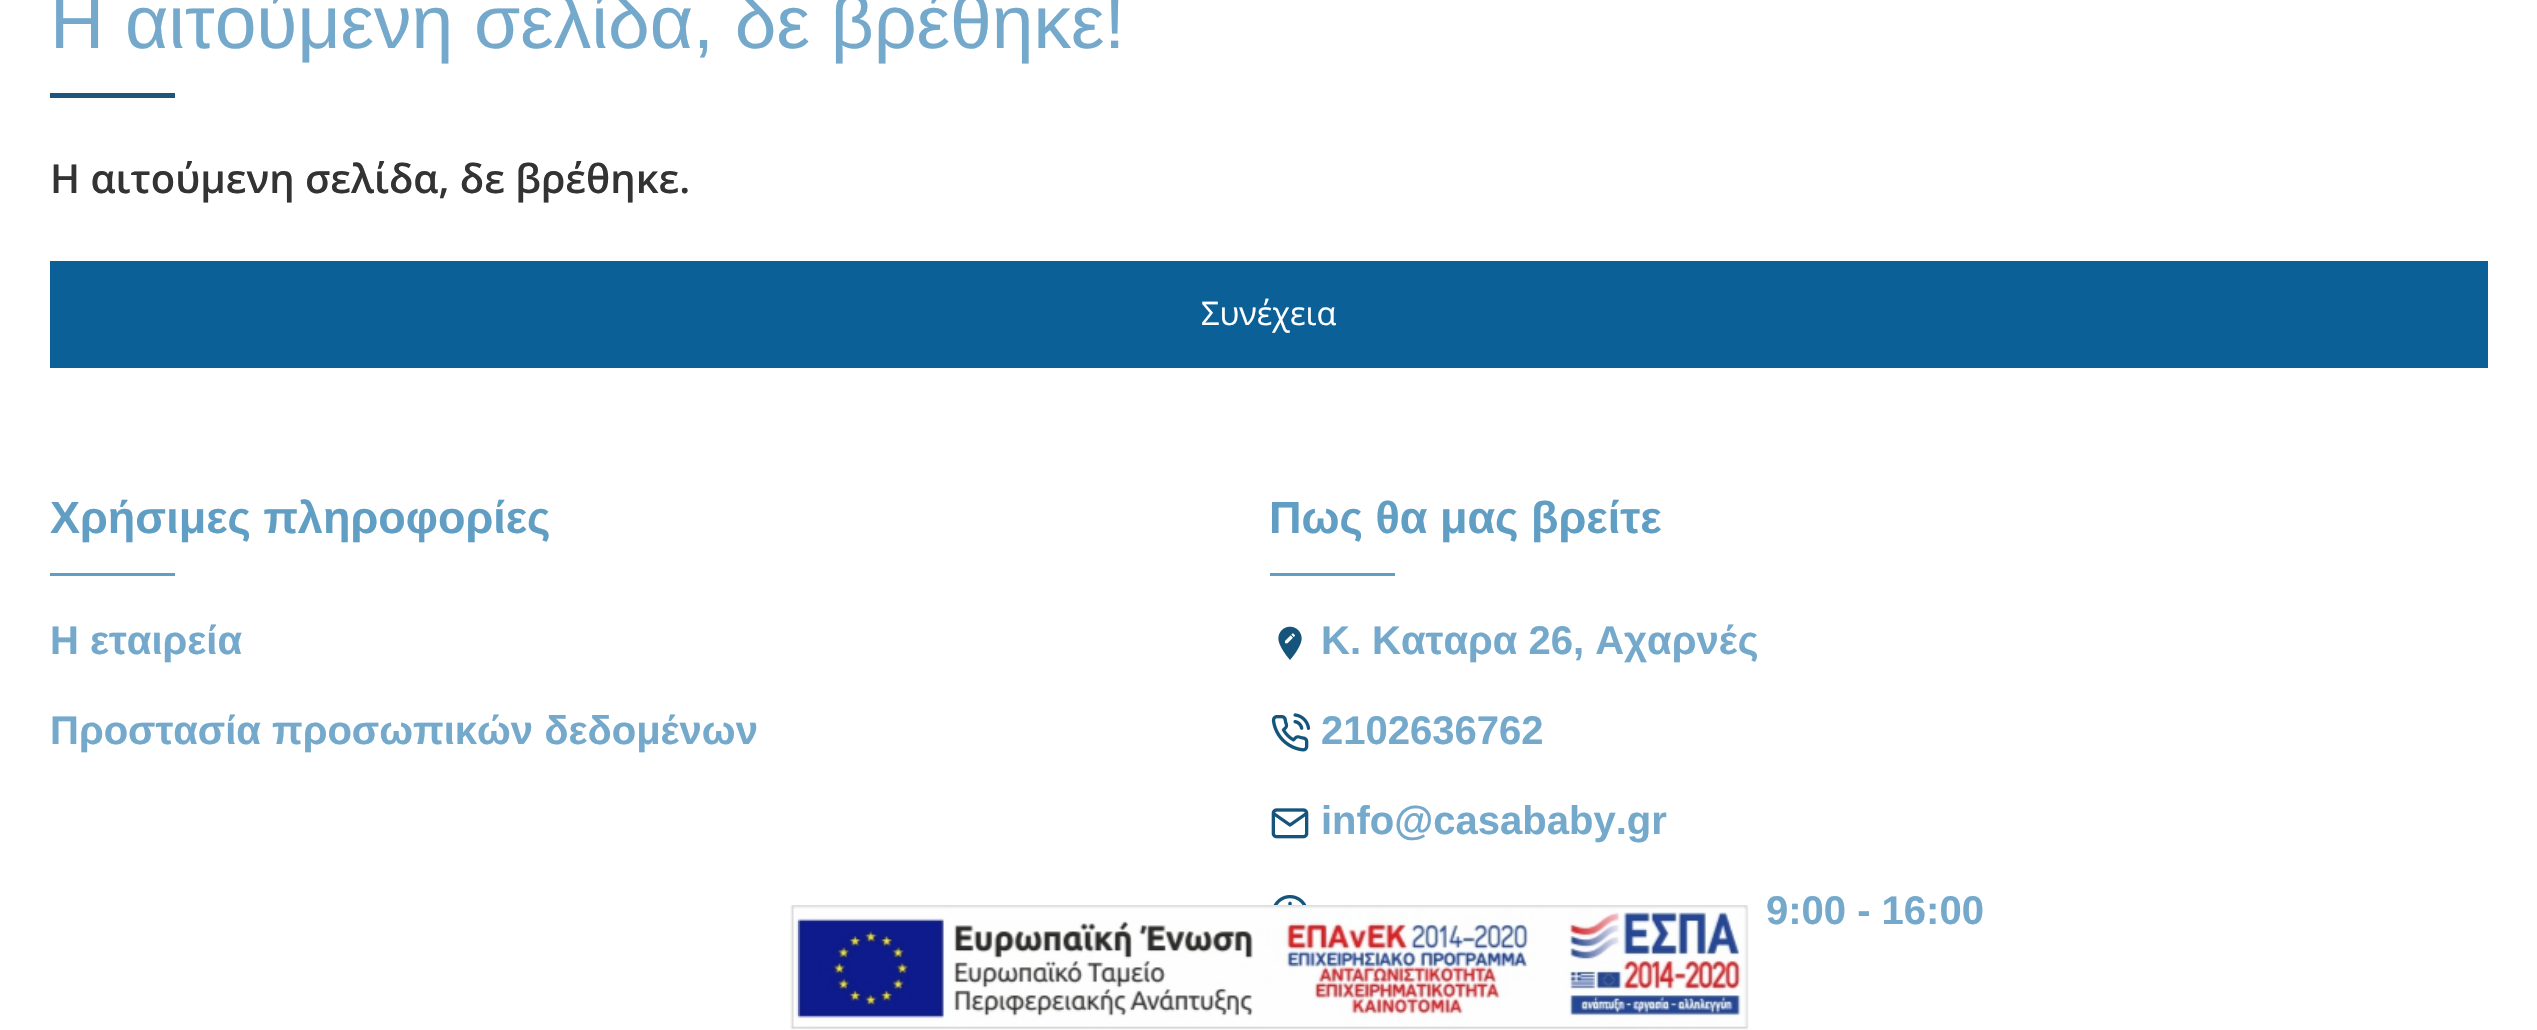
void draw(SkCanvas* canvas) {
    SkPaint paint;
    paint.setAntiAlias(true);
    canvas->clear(0xFFFFFFFF);
    SkFont font1(fontMgr->matchFamilyStyle("Liberation Sans", SkFontStyle::Normal()), 75);
    font1.setSubpixel(true);
    paint.setColor(0xFF74A9CB);
    canvas->drawString("Η αιτούμενη σελίδα, δε βρέθηκε!", 50, 48, font1, paint);
    paint.setColor(0xFF1D567A);
    canvas->drawRect(SkRect::MakeXYWH(50, 93, 125, 5), paint);
    SkFont font2(fontMgr->matchFamilyStyle("Open Sans", SkFontStyle(600, SkFontStyle::kNormal_Width, SkFontStyle::kUpright_Slant)), 40);
    font2.setSubpixel(true);
    paint.setColor(0xFF333333);
    canvas->drawString("Η αιτούμενη σελίδα, δε βρέθηκε.", 50, 193, font2, paint);
    paint.setColor(0xFF0A6097);
    canvas->drawRect(SkRect::MakeXYWH(50, 261, 2438, 107), paint);
    SkFont font3(fontMgr->matchFamilyStyle("Open Sans", SkFontStyle::Normal()), 32.5f);
    font3.setSubpixel(true);
    paint.setColor(0xFFFFFFFF);
    canvas->drawString("Συνέχεια", 1201, 325, font3, paint);
    SkFont font4(fontMgr->matchFamilyStyle("Liberation Sans", SkFontStyle::Bold()), 45);
    font4.setSubpixel(true);
    paint.setColor(0xFF619EC4);
    canvas->drawString("Χρήσιμες πληροφορίες", 50, 533, font4, paint);
    canvas->drawRect(SkRect::MakeXYWH(50, 573, 125, 3), paint);
    SkFont font5(fontMgr->matchFamilyStyle("Arimo", SkFontStyle::Bold()), 40);
    font5.setSubpixel(true);
    paint.setColor(0xFF74A9CB);
    canvas->drawString("Η εταιρεία", 50, 654, font5, paint);
    canvas->drawString("Προστασία προσωπικών δεδομένων", 50, 744, font5, paint);
    paint.setColor(0xFF619EC4);
    canvas->drawString("Πως θα μας βρείτε", 1269, 533, font4, paint);
    canvas->drawRect(SkRect::MakeXYWH(1270, 573, 125, 3), paint);
    canvas->drawImageRect(SkImages::DeferredFromEncodedData(SkData::MakeFromFileName("img1.png")), SkRect::MakeXYWH(1278, 626, 24, 34), SkSamplingOptions());
    paint.setColor(0xFF74A9CB);
    canvas->drawString("Κ. Καταρα 26, Αχαρνές", 1321, 654, font5, paint);
    canvas->drawImageRect(SkImages::DeferredFromEncodedData(SkData::MakeFromFileName("img2.png")), SkRect::MakeXYWH(1271, 713, 40, 39), SkSamplingOptions());
    canvas->drawString("2102636762", 1321, 744, font5, paint);
    canvas->drawImageRect(SkImages::DeferredFromEncodedData(SkData::MakeFromFileName("img3.png")), SkRect::MakeXYWH(1271, 808, 38, 31), SkSamplingOptions());
    canvas->drawString("info@casababy.gr", 1321, 834, font5, paint);
    canvas->drawImageRect(SkImages::DeferredFromEncodedData(SkData::MakeFromFileName("img4.png")), SkRect::MakeXYWH(1273, 895, 34, 10), SkSamplingOptions());
    canvas->drawString("9:00 - 16:00", 1766, 924, font5, paint);
    canvas->drawImageRect(SkImages::DeferredFromEncodedData(SkData::MakeFromFileName("img5.png")), SkRect::MakeXYWH(790, 905, 959, 125), SkSamplingOptions());
}
